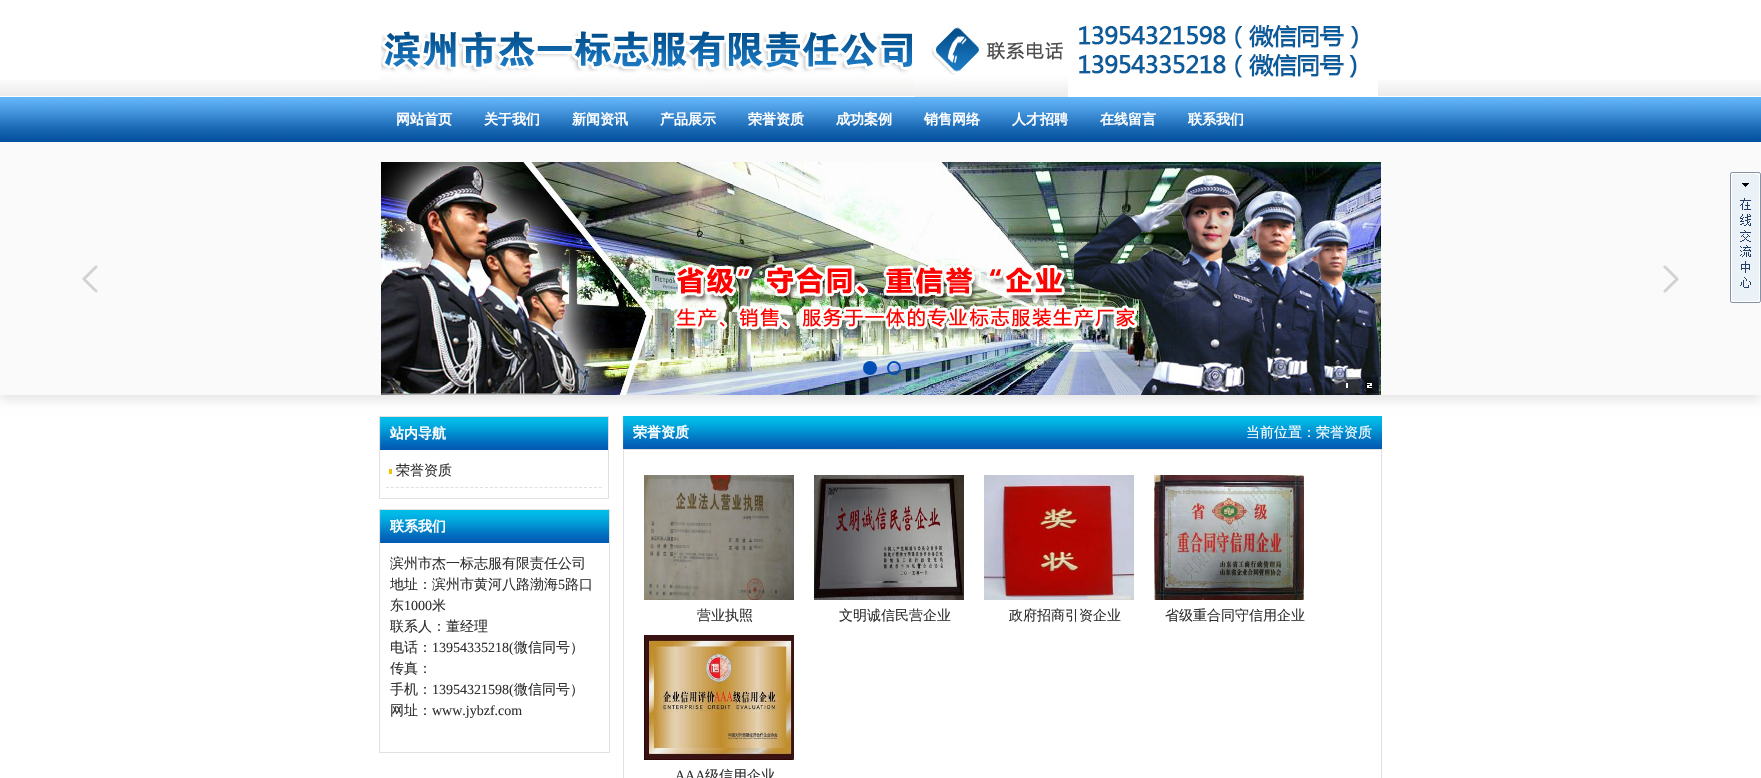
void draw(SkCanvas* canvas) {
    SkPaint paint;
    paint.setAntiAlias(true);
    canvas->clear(0xFFFFFFFF);
    canvas->drawImageRect(SkImages::DeferredFromEncodedData(SkData::MakeFromFileName("img1.png")), SkRect::MakeXYWH(0, 80, 1761, 62), SkSamplingOptions());
    canvas->drawImageRect(SkImages::DeferredFromEncodedData(SkData::MakeFromFileName("img2.png")), SkRect::MakeXYWH(381, 24, 997, 73), SkSamplingOptions());
    SkFont font1(fontMgr->matchFamilyStyle("WenQuanYi Zen Hei", SkFontStyle::Bold()), 14);
    font1.setSubpixel(true);
    paint.setColor(0xFFFFFFFF);
    canvas->drawString("网站首页", 396, 124, font1, paint);
    canvas->drawString("关于我们", 484, 124, font1, paint);
    canvas->drawString("新闻资讯", 572, 124, font1, paint);
    canvas->drawString("产品展示", 660, 124, font1, paint);
    canvas->drawString("荣誉资质", 748, 124, font1, paint);
    canvas->drawString("成功案例", 836, 124, font1, paint);
    canvas->drawString("销售网络", 924, 124, font1, paint);
    canvas->drawString("人才招聘", 1012, 124, font1, paint);
    canvas->drawString("在线留言", 1100, 124, font1, paint);
    canvas->drawString("联系我们", 1188, 124, font1, paint);
    paint.setColor(0x1A000000);
    paint.setMaskFilter(SkMaskFilter::MakeBlur(kNormal_SkBlurStyle, 5));
    canvas->drawRect(SkRect::MakeXYWH(0, 147, 1761, 253), paint);
    paint.setMaskFilter(nullptr);
    paint.setColor(0xFFFAFAFA);
    canvas->drawRect(SkRect::MakeXYWH(0, 144, 1761, 251), paint);
    canvas->drawImageRect(SkImages::DeferredFromEncodedData(SkData::MakeFromFileName("img3.png")), SkRect::MakeXYWH(82, 265, 16, 28), SkSamplingOptions());
    canvas->drawImageRect(SkImages::DeferredFromEncodedData(SkData::MakeFromFileName("img4.png")), SkRect::MakeXYWH(381, 162, 1000, 233), SkSamplingOptions());
    canvas->drawImageRect(SkImages::DeferredFromEncodedData(SkData::MakeFromFileName("img5.png")), SkRect::MakeXYWH(1663, 265, 16, 28), SkSamplingOptions());
    paint.setColor(0xFF004DB6);
    canvas->drawCircle(870, 368, 6, paint);
    paint.setStyle(SkPaint::kStroke_Style);
    paint.setStrokeWidth(2);
    canvas->drawCircle(870, 368, 6, paint);
    canvas->drawCircle(894, 368, 6, paint);
    canvas->drawImageRect(SkImages::DeferredFromEncodedData(SkData::MakeFromFileName("img6.png")), SkRect::MakeXYWH(1730, 172, 31, 131), SkSamplingOptions());
    paint.setStrokeWidth(1);
    paint.setColor(0xFFE2DFDF);
    canvas->drawRect(SkRect::MakeXYWH(379.5f, 416.5f, 229, 82), paint);
    canvas->drawImageRect(SkImages::DeferredFromEncodedData(SkData::MakeFromFileName("img7.png")), SkRect::MakeXYWH(380, 417, 228, 33), SkSamplingOptions());
    paint.setStyle(SkPaint::kFill_Style);
    paint.setColor(0xFFFFFFFF);
    canvas->drawString("站内导航", 390, 438, font1, paint);
    paint.setColor(0xFFF1C102);
    canvas->drawRect(SkRect::MakeXYWH(389, 469, 3, 5), paint);
    paint.setStyle(SkPaint::kStroke_Style);
    paint.setColor(0xFFE2DFDF);
    paint.setPathEffect(SkDashPathEffect::Make({{3, 1.95f}}, 0));
    canvas->drawPath(SkPathBuilder().moveTo(386, 487.5f).lineTo(602, 487.5f).detach(), paint);
    paint.setPathEffect(nullptr);
    SkFont font2(fontMgr->matchFamilyStyle("WenQuanYi Zen Hei", SkFontStyle(500, SkFontStyle::kNormal_Width, SkFontStyle::kUpright_Slant)), 14);
    font2.setSubpixel(true);
    paint.setStyle(SkPaint::kFill_Style);
    paint.setColor(0xFF303030);
    canvas->drawString("荣誉资质", 396, 475, font2, paint);
    paint.setStyle(SkPaint::kStroke_Style);
    paint.setColor(0xFFE2DFDF);
    canvas->drawRect(SkRect::MakeXYWH(379.5f, 509.5f, 230, 243), paint);
    canvas->drawImageRect(SkImages::DeferredFromEncodedData(SkData::MakeFromFileName("img8.png")), SkRect::MakeXYWH(380, 510, 229, 33), SkSamplingOptions());
    paint.setStyle(SkPaint::kFill_Style);
    paint.setColor(0xFFFFFFFF);
    canvas->drawString("联系我们", 390, 531, font1, paint);
    paint.setColor(0xFF303030);
    canvas->drawString("滨州市杰一标志服有限责任公司", 390, 568, font2, paint);
    canvas->drawString("地址：滨州市黄河八路渤海", 390, 589, font2, paint);
    SkFont font3(fontMgr->matchFamilyStyle("Liberation Serif", SkFontStyle::Normal()), 14);
    font3.setSubpixel(true);
    canvas->drawString("5", 558, 589, font3, paint);
    canvas->drawString("路口", 565, 589, font2, paint);
    canvas->drawString("东", 390, 610, font2, paint);
    canvas->drawString("1000", 404, 610, font3, paint);
    canvas->drawString("米", 432, 610, font2, paint);
    canvas->drawString("联系人：董经理", 390, 631, font2, paint);
    canvas->drawString("电话：", 390, 652, font2, paint);
    canvas->drawString("13954335218(", 432, 652, font3, paint);
    canvas->drawString("微信同号）", 514, 652, font2, paint);
    canvas->drawString("传真：", 390, 673, font2, paint);
    canvas->drawString("手机：", 390, 694, font2, paint);
    canvas->drawString("13954321598(", 432, 694, font3, paint);
    canvas->drawString("微信同号）", 514, 694, font2, paint);
    canvas->drawString("网址：", 390, 715, font2, paint);
    canvas->drawString("www.jybzf.com", 432, 715, font3, paint);
    canvas->drawImageRect(SkImages::DeferredFromEncodedData(SkData::MakeFromFileName("img9.png")), SkRect::MakeXYWH(623, 416, 759, 33), SkSamplingOptions());
    paint.setColor(0xFFFFFFFF);
    canvas->drawString("荣誉资质", 633, 437, font1, paint);
    canvas->drawString("当前位置：荣誉资质", 1246, 437, font2, paint);
    paint.setStyle(SkPaint::kStroke_Style);
    paint.setColor(0xFFE1E1E1);
    canvas->drawRect(SkRect::MakeXYWH(623.5f, 449.5f, 758, 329), paint);
    canvas->drawImageRect(SkImages::DeferredFromEncodedData(SkData::MakeFromFileName("img10.png")), SkRect::MakeXYWH(644, 475, 150, 125), SkSamplingOptions());
    paint.setStyle(SkPaint::kFill_Style);
    paint.setColor(0xFF303030);
    canvas->drawString("营业执照", 697, 620, font2, paint);
    canvas->drawImageRect(SkImages::DeferredFromEncodedData(SkData::MakeFromFileName("img11.png")), SkRect::MakeXYWH(814, 475, 150, 125), SkSamplingOptions());
    canvas->drawString("文明诚信民营企业", 839, 620, font2, paint);
    canvas->drawImageRect(SkImages::DeferredFromEncodedData(SkData::MakeFromFileName("img12.png")), SkRect::MakeXYWH(984, 475, 150, 125), SkSamplingOptions());
    canvas->drawString("政府招商引资企业", 1009, 620, font2, paint);
    canvas->drawImageRect(SkImages::DeferredFromEncodedData(SkData::MakeFromFileName("img13.png")), SkRect::MakeXYWH(1154, 475, 150, 125), SkSamplingOptions());
    canvas->drawString("省级重合同守信用企业", 1165, 620, font2, paint);
    canvas->drawImageRect(SkImages::DeferredFromEncodedData(SkData::MakeFromFileName("img14.png")), SkRect::MakeXYWH(644, 635, 150, 125), SkSamplingOptions());
    canvas->drawString("AAA", 675, 780, font3, paint);
    canvas->drawString("级信用企业", 705, 780, font2, paint);
}
